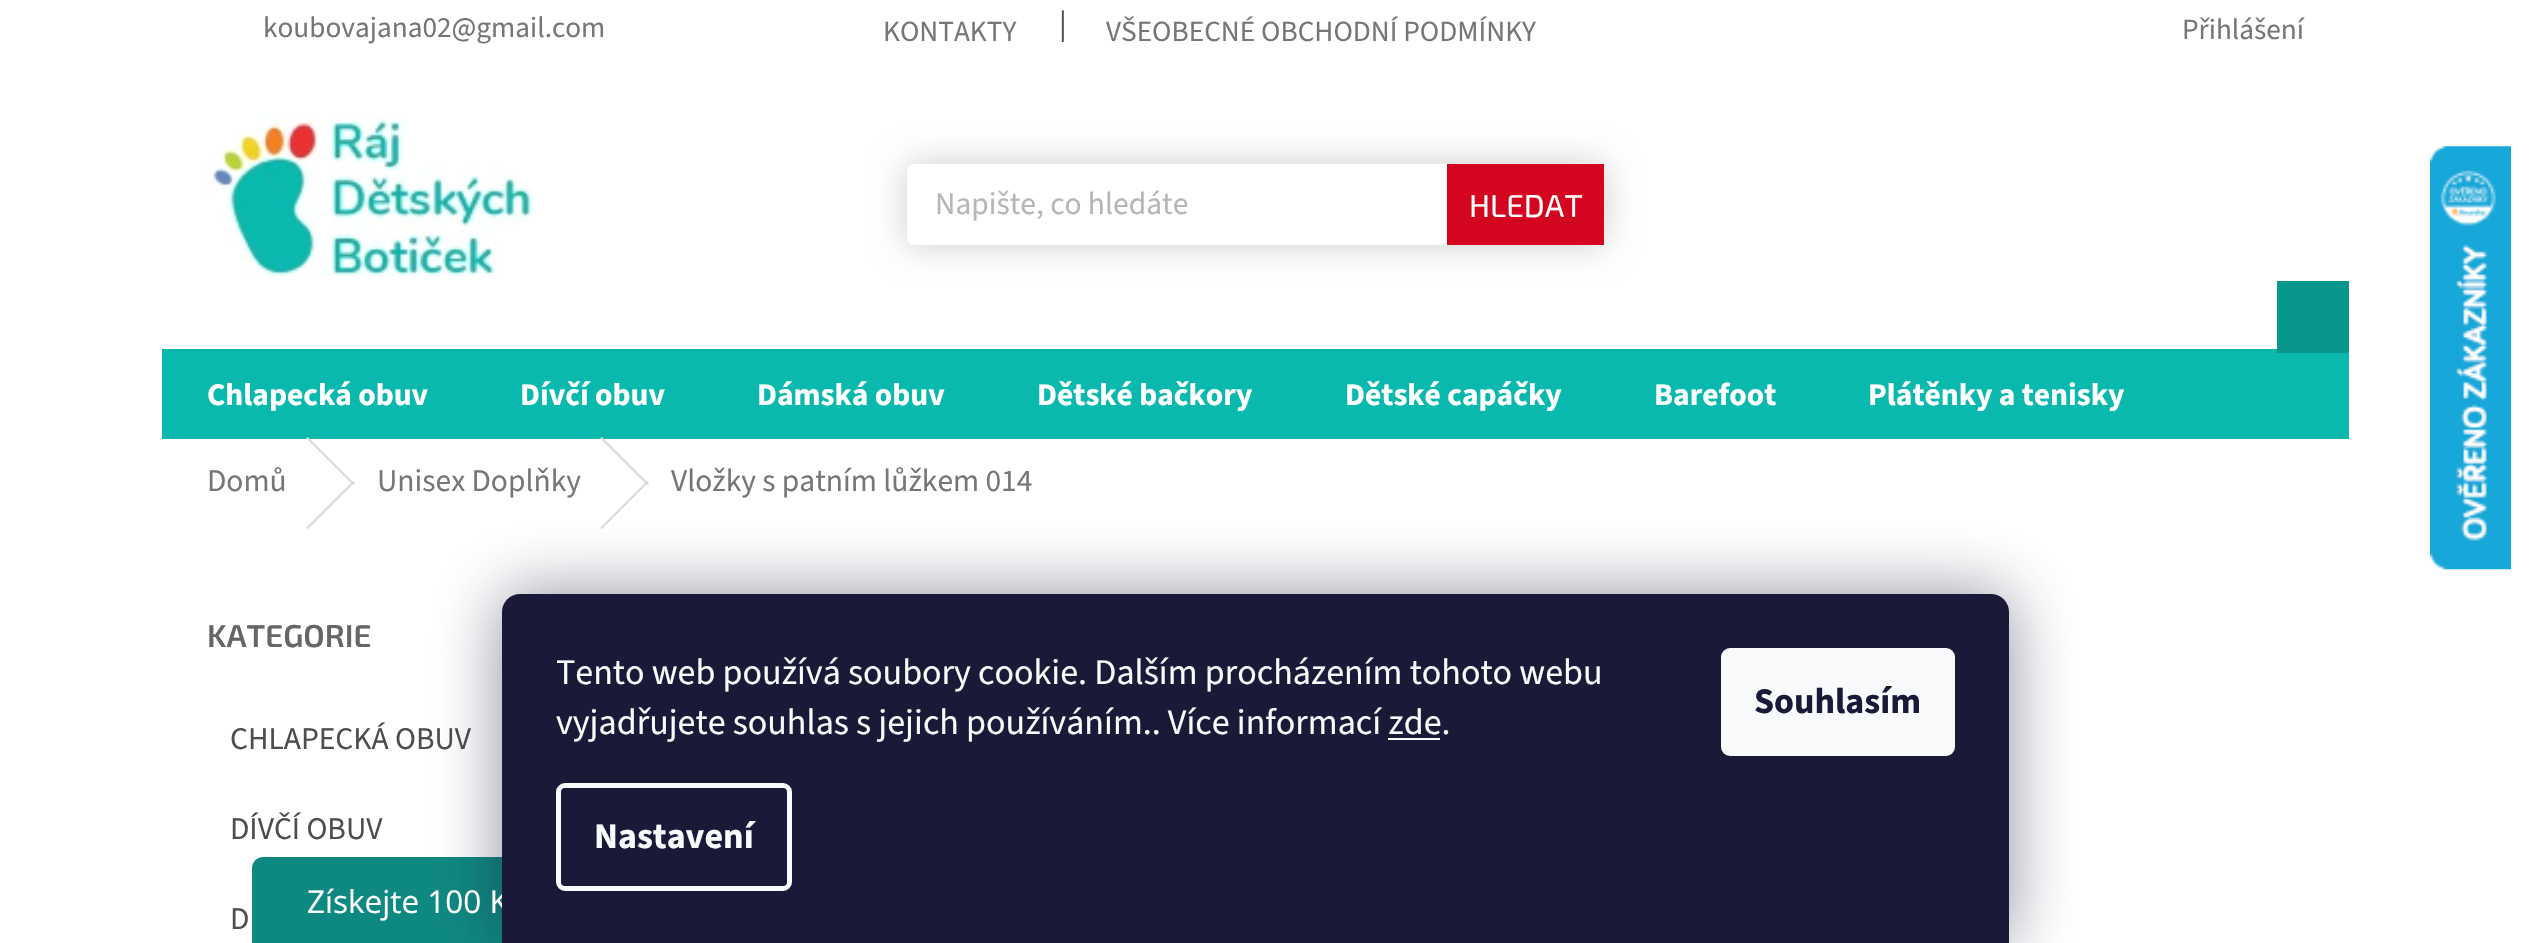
void draw(SkCanvas* canvas) {
    SkPaint paint;
    paint.setAntiAlias(true);
    canvas->clear(0xFFFFFFFF);
    SkFont font1(fontMgr->matchFamilyStyle("Source Sans 3", SkFontStyle::Normal()), 29.25f);
    font1.setSubpixel(true);
    paint.setColor(0xFF767676);
    canvas->drawString("koubovajana02@gmail.com", 263, 37, font1, paint);
    canvas->drawString("KONTAKTY", 883, 41, font1, paint);
    SkFont font2(fontMgr->matchFamilyStyle("Source Sans 3", SkFontStyle::Normal()), 31.5f);
    font2.setSubpixel(true);
    paint.setColor(0xFF4D4D4D);
    canvas->drawString("|", 1059, 34, font2, paint);
    paint.setColor(0xFF767676);
    canvas->drawString("VŠEOBECNÉ OBCHODNÍ PODMÍNKY", 1106, 41, font1, paint);
    canvas->drawString("Přihlášení", 2182, 39, font1, paint);
    canvas->drawImageRect(SkImages::DeferredFromEncodedData(SkData::MakeFromFileName("img1.png")), SkRect::MakeXYWH(207, 115, 327, 162), SkSamplingOptions());
    paint.setColor(0x33000000);
    paint.setMaskFilter(SkMaskFilter::MakeBlur(kNormal_SkBlurStyle, 17));
    canvas->drawRoundRect(SkRect::MakeXYWH(907, 164, 697, 81), 7, 7, paint);
    paint.setMaskFilter(nullptr);
    paint.setColor(0xFFFFFFFF);
    canvas->drawRoundRect(SkRect::MakeXYWH(908, 165, 695, 79), 6, 6, paint);
    paint.setStyle(SkPaint::kStroke_Style);
    paint.setStrokeWidth(2);
    canvas->drawRoundRect(SkRect::MakeXYWH(908, 165, 695, 79), 6, 6, paint);
    paint.setStyle(SkPaint::kFill_Style);
    paint.setColor(0xFFB6B6B6);
    canvas->drawString("Napište, co hledáte", 935, 214, font2, paint);
    paint.setColor(0xFFD4051F);
    canvas->drawRect(SkRect::MakeXYWH(1447, 164, 157, 81), paint);
    SkFont font3(fontMgr->matchFamilyStyle("Exo 2", SkFontStyle::Normal()), 31.5f);
    font3.setSubpixel(true);
    paint.setColor(0xFFFFFFFF);
    canvas->drawString("HLEDAT", 1469, 217, font3, paint);
    paint.setColor(0xFF0AB9AD);
    canvas->drawRect(SkRect::MakeXYWH(162, 349, 2187, 90), paint);
    paint.setColor(0xFF08968D);
    canvas->drawRect(SkRect::MakeXYWH(2277, 281, 72, 72), paint);
    SkFont font4(fontMgr->matchFamilyStyle("Source Sans 3", SkFontStyle::Bold()), 31.5f);
    font4.setSubpixel(true);
    paint.setColor(0xFFFFFFFF);
    canvas->drawString("Chlapecká obuv", 207, 405, font4, paint);
    canvas->drawString("Dívčí obuv", 520, 405, font4, paint);
    canvas->drawString("Dámská obuv", 757, 405, font4, paint);
    canvas->drawString("Dětské bačkory", 1037, 405, font4, paint);
    canvas->drawString("Dětské capáčky", 1345, 405, font4, paint);
    canvas->drawString("Barefoot", 1654, 405, font4, paint);
    canvas->drawString("Plátěnky a tenisky", 1868, 405, font4, paint);
    paint.setColor(0xFF767676);
    canvas->drawString("Domů", 207, 491, font2, paint);
    paint.setColor(0xFFDADADA);
    canvas->drawPath(SkPathBuilder().moveTo(306, 438).lineTo(308, 437).lineTo(355, 484).lineTo(353, 485).close().detach(), paint);
    canvas->drawPath(SkPathBuilder().moveTo(353, 481).lineTo(355, 482).lineTo(308, 529).lineTo(306, 528).close().detach(), paint);
    paint.setColor(0xFF767676);
    canvas->drawString("Unisex Doplňky", 377, 491, font2, paint);
    paint.setColor(0xFFDADADA);
    canvas->drawPath(SkPathBuilder().moveTo(600, 438).lineTo(602, 437).lineTo(649, 484).lineTo(647, 485).close().detach(), paint);
    canvas->drawPath(SkPathBuilder().moveTo(647, 481).lineTo(649, 482).lineTo(602, 529).lineTo(600, 528).close().detach(), paint);
    paint.setColor(0xFF767676);
    canvas->drawString("Vložky s patním lůžkem 014", 671, 491, font2, paint);
    SkFont font5(fontMgr->matchFamilyStyle("Exo 2", SkFontStyle(600, SkFontStyle::kNormal_Width, SkFontStyle::kUpright_Slant)), 31.5f);
    font5.setSubpixel(true);
    paint.setColor(0xFF666666);
    canvas->drawString("KATEGORIE", 207, 647, font5, paint);
    paint.setColor(0xFF4D4D4D);
    canvas->drawString("CHLAPECKÁ OBUV", 230, 749, font2, paint);
    canvas->drawString("DÍVČÍ OBUV", 230, 839, font2, paint);
    canvas->drawString("D", 230, 929, font2, paint);
    canvas->drawImageRect(SkImages::DeferredFromEncodedData(SkData::MakeFromFileName("img2.png")), SkRect::MakeXYWH(2430, 146, 81, 424), SkSamplingOptions());
    paint.setColor(0xFF0D8981);
    canvas->drawPath(SkPathBuilder().moveTo(263, 857).lineTo(570, 857).cubicTo(576, 857, 581, 862, 581, 868).lineTo(581, 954).lineTo(252, 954).lineTo(252, 868).cubicTo(252, 862, 257, 857, 263, 857).close().detach(), paint);
    paint.setColor(0x801B1939);
    paint.setMaskFilter(SkMaskFilter::MakeBlur(kNormal_SkBlurStyle, 34));
    canvas->drawRoundRect(SkRect::MakeXYWH(502, 594, 1507, 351), 18, 18, paint);
    paint.setMaskFilter(nullptr);
    SkFont font6(fontMgr->matchFamilyStyle("Open Sans", SkFontStyle::Normal()), 31.5f);
    font6.setSubpixel(true);
    paint.setColor(0xFFFFFFFF);
    canvas->drawString("Získejte 100 K", 307, 913, font6, paint);
    paint.setColor(0xFF1A1937);
    canvas->drawPath(SkPathBuilder().moveTo(520, 594).lineTo(1991, 594).cubicTo(2001, 594, 2009, 602, 2009, 612).lineTo(2009, 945).lineTo(502, 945).lineTo(502, 612).cubicTo(502, 602, 510, 594, 520, 594).close().detach(), paint);
    SkFont font7(fontMgr->matchFamilyStyle("Source Sans 3", SkFontStyle::Normal()), 36);
    font7.setSubpixel(true);
    paint.setColor(0xFFF8FAFB);
    canvas->drawString("Tento web používá soubory cookie. Dalším procházením tohoto webu", 556, 684, font7, paint);
    canvas->drawString("vyjadřujete souhlas s jejich používáním.. Více informací zde.", 556, 734, font7, paint);
    canvas->drawRect(SkRect::MakeXYWH(1388, 738, 52, 2), paint);
    paint.setStyle(SkPaint::kStroke_Style);
    paint.setStrokeWidth(5);
    canvas->drawRoundRect(SkRect::MakeXYWH(558.5f, 785.5f, 231, 103), 6.5f, 6.5f, paint);
    SkFont font8(fontMgr->matchFamilyStyle("Source Sans 3", SkFontStyle::Bold()), 36);
    font8.setSubpixel(true);
    paint.setStyle(SkPaint::kFill_Style);
    canvas->drawString("Nastavení", 594, 848, font8, paint);
    canvas->drawRoundRect(SkRect::MakeXYWH(1721, 648, 234, 108), 9, 9, paint);
    paint.setColor(0xFF1A1937);
    canvas->drawString("Souhlasím", 1754, 713, font8, paint);
}
